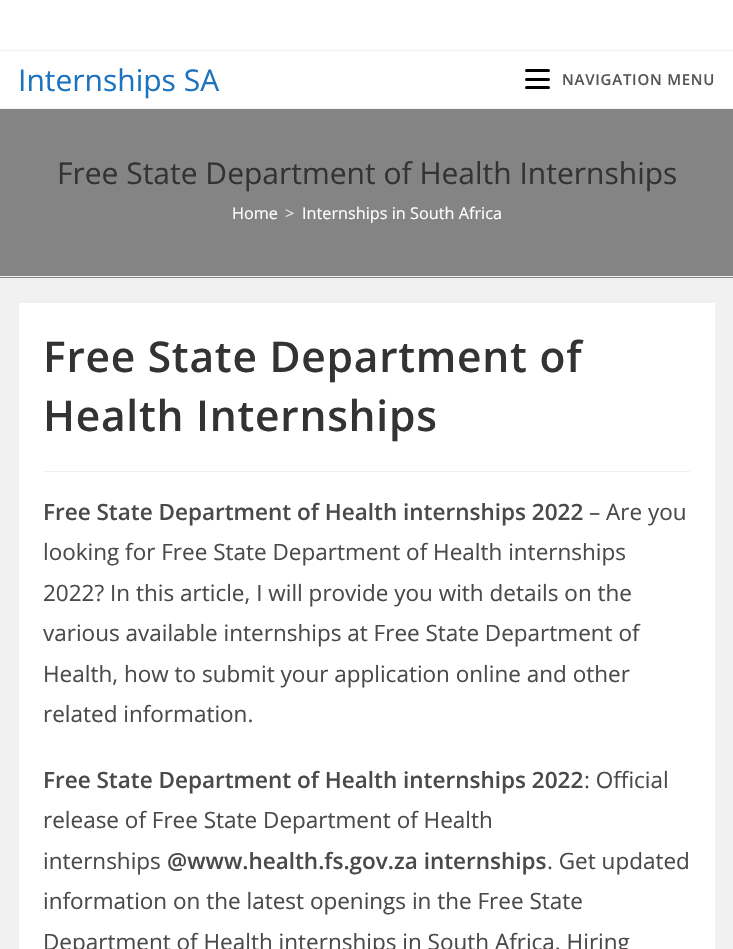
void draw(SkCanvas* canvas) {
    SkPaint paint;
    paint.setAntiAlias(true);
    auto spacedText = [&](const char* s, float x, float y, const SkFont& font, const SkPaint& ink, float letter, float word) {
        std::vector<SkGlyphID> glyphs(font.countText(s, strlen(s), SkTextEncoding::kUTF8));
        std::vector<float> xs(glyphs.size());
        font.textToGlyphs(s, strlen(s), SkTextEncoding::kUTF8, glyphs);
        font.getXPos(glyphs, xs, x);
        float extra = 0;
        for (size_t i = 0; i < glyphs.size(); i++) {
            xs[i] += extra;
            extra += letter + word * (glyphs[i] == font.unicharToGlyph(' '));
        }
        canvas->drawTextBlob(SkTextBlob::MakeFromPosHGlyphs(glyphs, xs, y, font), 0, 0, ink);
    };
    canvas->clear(0xFFF1F1F1);
    paint.setColor(0xFFFFFFFF);
    canvas->drawRect(SkRect::MakeXYWH(0, 0, 733, 50), paint);
    canvas->drawRect(SkRect::MakeXYWH(0, 51, 733, 57), paint);
    SkFont font1(fontMgr->matchFamilyStyle("Open Sans", SkFontStyle::Normal()), 30);
    font1.setSubpixel(true);
    paint.setColor(0xFF1E73BE);
    canvas->drawString("Internships SA", 18, 91, font1, paint);
    paint.setColor(0xFF000000);
    canvas->drawRoundRect(SkRect::MakeXYWH(525, 78, 25, 3), 1.5f, 1.5f, paint);
    canvas->drawRoundRect(SkRect::MakeXYWH(525, 69, 25, 3), 1.5f, 1.5f, paint);
    canvas->drawRoundRect(SkRect::MakeXYWH(525, 86, 25, 3), 1.5f, 1.5f, paint);
    SkFont font2(fontMgr->matchFamilyStyle("Open Sans", SkFontStyle(600, SkFontStyle::kNormal_Width, SkFontStyle::kUpright_Slant)), 15);
    font2.setSubpixel(true);
    paint.setColor(0xFF555555);
    spacedText("NAVIGATION MENU", 562, 85, font2, paint, 0.75f, 0);
    paint.setColor(0xFF848484);
    canvas->drawRect(SkRect::MakeXYWH(0, 109, 733, 169), paint);
    paint.setColor(0xFFF1F1F1);
    canvas->drawRect(SkRect::MakeXYWH(0, 276, 733, 1), paint);
    paint.setColor(0xFF333333);
    canvas->drawString("Free State Department of Health Internships", 57, 184, font1, paint);
    SkFont font3(fontMgr->matchFamilyStyle("Open Sans", SkFontStyle::Normal()), 16.25f);
    font3.setSubpixel(true);
    paint.setColor(0xFFFFFFFF);
    canvas->drawString("Home", 232, 219, font3, paint);
    paint.setColor(0xFFE8E8E8);
    canvas->drawString(">", 285, 219, font3, paint);
    paint.setColor(0xFFFFFFFF);
    canvas->drawString("Internships in South Africa", 302, 219, font3, paint);
    canvas->drawRect(SkRect::MakeXYWH(19, 303, 696, 646), paint);
    paint.setColor(0xFFF1F1F1);
    canvas->drawRect(SkRect::MakeXYWH(44, 471, 646, 1), paint);
    SkFont font4(fontMgr->matchFamilyStyle("Open Sans", SkFontStyle(600, SkFontStyle::kNormal_Width, SkFontStyle::kUpright_Slant)), 42.5f);
    font4.setSubpixel(true);
    paint.setColor(0xFF333333);
    spacedText("Free State Department of", 43, 372, font4, paint, 0.75f, 0);
    spacedText("Health Internships", 43, 431, font4, paint, 0.75f, 0);
    SkFont font5(fontMgr->matchFamilyStyle("Open Sans", SkFontStyle(600, SkFontStyle::kNormal_Width, SkFontStyle::kUpright_Slant)), 22.5f);
    font5.setSubpixel(true);
    paint.setColor(0xFF4A4A4A);
    canvas->drawString("Free State Department of Health internships 2022", 43, 520, font5, paint);
    SkFont font6(fontMgr->matchFamilyStyle("Open Sans", SkFontStyle::Normal()), 22.5f);
    font6.setSubpixel(true);
    canvas->drawString("– Are you", 589, 520, font6, paint);
    canvas->drawString("looking for Free State Department of Health internships", 43, 560, font6, paint);
    canvas->drawString("2022? In this article, I will provide you with details on the", 43, 601, font6, paint);
    canvas->drawString("various available internships at Free State Department of", 43, 641, font6, paint);
    canvas->drawString("Health, how to submit your application online and other", 43, 682, font6, paint);
    canvas->drawString("related information.", 43, 722, font6, paint);
    canvas->drawString("Free State Department of Health internships 2022", 43, 788, font5, paint);
    canvas->drawString(": Official", 584, 788, font6, paint);
    canvas->drawString("release of Free State Department of Health", 43, 828, font6, paint);
    canvas->drawString("internships", 43, 869, font6, paint);
    canvas->drawString("@www.health.fs.gov.za internships", 167, 869, font5, paint);
    canvas->drawString(". Get updated", 547, 869, font6, paint);
    canvas->drawString("information on the latest openings in the Free State", 43, 909, font6, paint);
    canvas->drawString("Department of Health internships in South Africa. Hiring", 43, 950, font6, paint);
}
